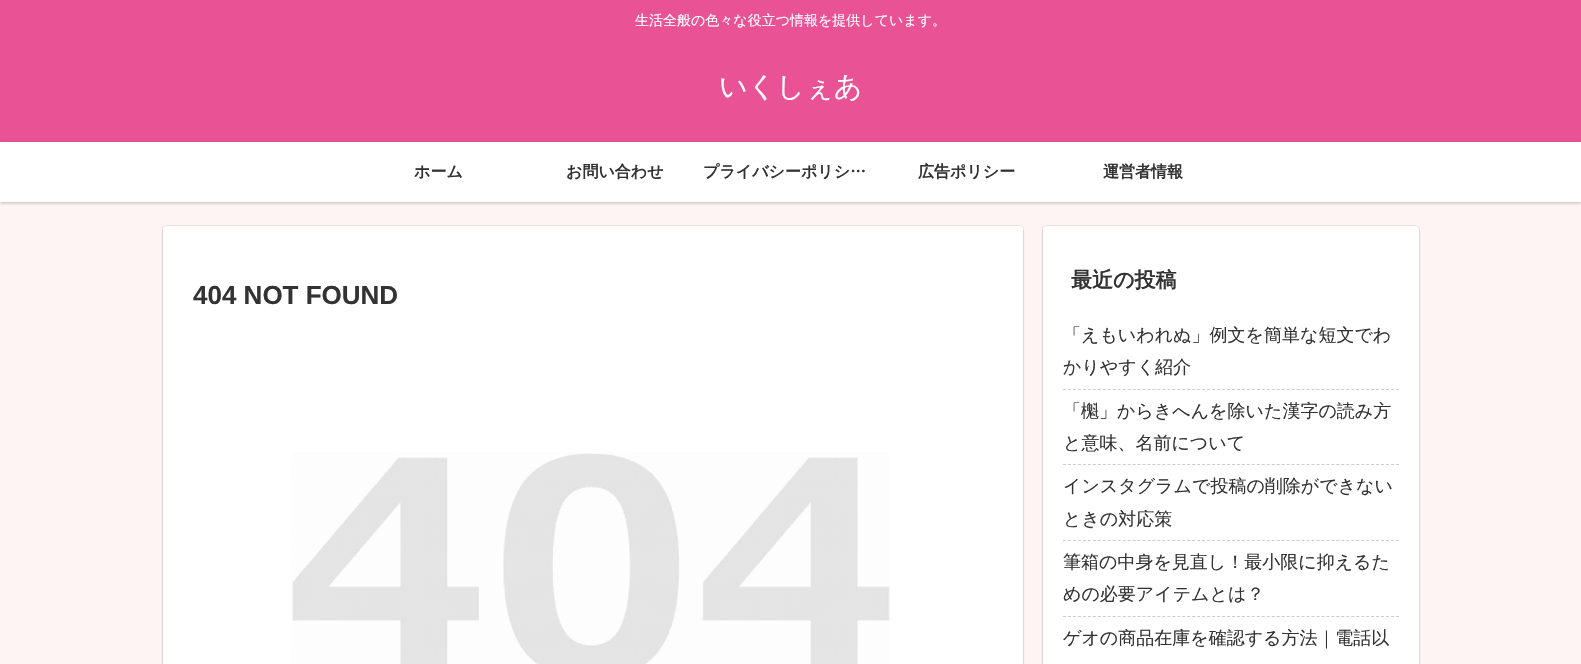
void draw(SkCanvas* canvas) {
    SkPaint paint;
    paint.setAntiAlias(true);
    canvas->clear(0xFFFEF4F4);
    paint.setColor(0xFFFFFFFF);
    canvas->drawRect(SkRect::MakeXYWH(0, 142, 1581, 60), paint);
    paint.setColor(0xFFE95295);
    canvas->drawRect(SkRect::MakeXYWH(0, 0, 1581, 142), paint);
    SkFont font1(fontMgr->matchFamilyStyle("WenQuanYi Zen Hei", SkFontStyle(500, SkFontStyle::kNormal_Width, SkFontStyle::kUpright_Slant)), 14);
    font1.setSubpixel(true);
    paint.setColor(0xFFFFFFFF);
    canvas->drawString("生活全般の色々な役立つ情報を提供しています。", 635, 25, font1, paint);
    SkFont font2(fontMgr->matchFamilyStyle("WenQuanYi Zen Hei", SkFontStyle(500, SkFontStyle::kNormal_Width, SkFontStyle::kUpright_Slant)), 28);
    font2.setSubpixel(true);
    canvas->drawString("いくしぇあ", 719, 96, font2, paint);
    canvas->save();
    canvas->clipPath(SkPathBuilder(SkPathFillType::kEvenOdd).moveTo(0, 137).lineTo(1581, 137).lineTo(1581, 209).lineTo(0, 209).close().moveTo(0, 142).lineTo(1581, 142).lineTo(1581, 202).lineTo(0, 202).close().detach(), true);
    paint.setColor(0x40000000);
    paint.setMaskFilter(SkMaskFilter::MakeBlur(kNormal_SkBlurStyle, 1.5f));
    canvas->drawRect(SkRect::MakeXYWH(0, 143, 1581, 60), paint);
    paint.setMaskFilter(nullptr);
    canvas->restore();
    SkFont font3(fontMgr->matchFamilyStyle("WenQuanYi Zen Hei", SkFontStyle::Bold()), 16);
    font3.setSubpixel(true);
    paint.setColor(0xFF333333);
    canvas->drawString("ホーム", 414, 177, font3, paint);
    canvas->drawString("お問い合わせ", 566, 177, font3, paint);
    canvas->drawString("プライバシーポリシ…", 703, 177, font3, paint);
    canvas->drawString("広告ポリシー", 918, 177, font3, paint);
    canvas->drawString("運営者情報", 1103, 177, font3, paint);
    paint.setStyle(SkPaint::kStroke_Style);
    paint.setStrokeWidth(1);
    paint.setColor(0xFFEAE0E0);
    canvas->drawRoundRect(SkRect::MakeXYWH(162.5f, 225.5f, 861, 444), 4.5f, 4.5f, paint);
    paint.setStyle(SkPaint::kFill_Style);
    paint.setColor(0x29000000);
    paint.setMaskFilter(SkMaskFilter::MakeBlur(kNormal_SkBlurStyle, 1));
    canvas->drawRoundRect(SkRect::MakeXYWH(163, 228, 860, 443), 4, 4, paint);
    paint.setMaskFilter(nullptr);
    paint.setColor(0xFFFFFFFF);
    canvas->drawRoundRect(SkRect::MakeXYWH(163, 226, 860, 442), 4, 4, paint);
    SkFont font4(fontMgr->matchFamilyStyle("Liberation Sans", SkFontStyle::Bold()), 26);
    font4.setSubpixel(true);
    paint.setColor(0xFF333333);
    canvas->drawString("404 NOT FOUND", 193, 304, font4, paint);
    canvas->drawImageRect(SkImages::DeferredFromEncodedData(SkData::MakeFromFileName("img1.png")), SkRect::MakeXYWH(291, 452, 599, 212), SkSamplingOptions());
    paint.setStyle(SkPaint::kStroke_Style);
    paint.setColor(0xFFEAE0E0);
    canvas->drawRoundRect(SkRect::MakeXYWH(1042.5f, 225.5f, 377, 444), 4.5f, 4.5f, paint);
    paint.setStyle(SkPaint::kFill_Style);
    paint.setColor(0x29000000);
    paint.setMaskFilter(SkMaskFilter::MakeBlur(kNormal_SkBlurStyle, 1));
    canvas->drawRoundRect(SkRect::MakeXYWH(1043, 228, 376, 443), 4, 4, paint);
    paint.setMaskFilter(nullptr);
    paint.setColor(0xFFFFFFFF);
    canvas->drawRoundRect(SkRect::MakeXYWH(1043, 226, 376, 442), 4, 4, paint);
    SkFont font5(fontMgr->matchFamilyStyle("WenQuanYi Zen Hei", SkFontStyle::Bold()), 21);
    font5.setSubpixel(true);
    paint.setColor(0xFF333333);
    canvas->drawString("最近の投稿", 1071, 287, font5, paint);
    paint.setStyle(SkPaint::kStroke_Style);
    paint.setColor(0xFFCCCCCC);
    paint.setPathEffect(SkDashPathEffect::Make({{3, 1.97f}}, 0));
    canvas->drawPath(SkPathBuilder().moveTo(1063, 389.5f).lineTo(1399, 389.5f).detach(), paint);
    paint.setPathEffect(nullptr);
    SkFont font6(fontMgr->matchFamilyStyle("WenQuanYi Zen Hei", SkFontStyle(500, SkFontStyle::kNormal_Width, SkFontStyle::kUpright_Slant)), 18);
    font6.setSubpixel(true);
    paint.setStyle(SkPaint::kFill_Style);
    paint.setColor(0xFF333333);
    canvas->drawString("「えもいわれぬ」例文を簡単な短文でわ", 1063, 341, font6, paint);
    canvas->drawString("かりやすく紹介", 1063, 373, font6, paint);
    paint.setStyle(SkPaint::kStroke_Style);
    paint.setColor(0xFFCCCCCC);
    paint.setPathEffect(SkDashPathEffect::Make({{3, 1.97f}}, 0));
    canvas->drawPath(SkPathBuilder().moveTo(1063, 464.5f).lineTo(1399, 464.5f).detach(), paint);
    paint.setPathEffect(nullptr);
    paint.setStyle(SkPaint::kFill_Style);
    paint.setColor(0xFF333333);
    canvas->drawString("「櫆」からきへんを除いた漢字の読み方", 1063, 417, font6, paint);
    canvas->drawString("と意味、名前について", 1063, 449, font6, paint);
    paint.setStyle(SkPaint::kStroke_Style);
    paint.setColor(0xFFCCCCCC);
    paint.setPathEffect(SkDashPathEffect::Make({{3, 1.97f}}, 0));
    canvas->drawPath(SkPathBuilder().moveTo(1063, 540.5f).lineTo(1399, 540.5f).detach(), paint);
    paint.setPathEffect(nullptr);
    paint.setStyle(SkPaint::kFill_Style);
    paint.setColor(0xFF333333);
    canvas->drawString("インスタグラムで投稿の削除ができない", 1063, 492, font6, paint);
    canvas->drawString("ときの対応策", 1063, 525, font6, paint);
    paint.setStyle(SkPaint::kStroke_Style);
    paint.setColor(0xFFCCCCCC);
    paint.setPathEffect(SkDashPathEffect::Make({{3, 1.97f}}, 0));
    canvas->drawPath(SkPathBuilder().moveTo(1063, 616.5f).lineTo(1399, 616.5f).detach(), paint);
    paint.setPathEffect(nullptr);
    paint.setStyle(SkPaint::kFill_Style);
    paint.setColor(0xFF333333);
    canvas->drawString("筆箱の中身を見直し！最小限に抑えるた", 1063, 568, font6, paint);
    canvas->drawString("めの必要アイテムとは？", 1063, 600, font6, paint);
    canvas->drawString("ゲオの商品在庫を確認する方法｜電話以", 1063, 644, font6, paint);
}
